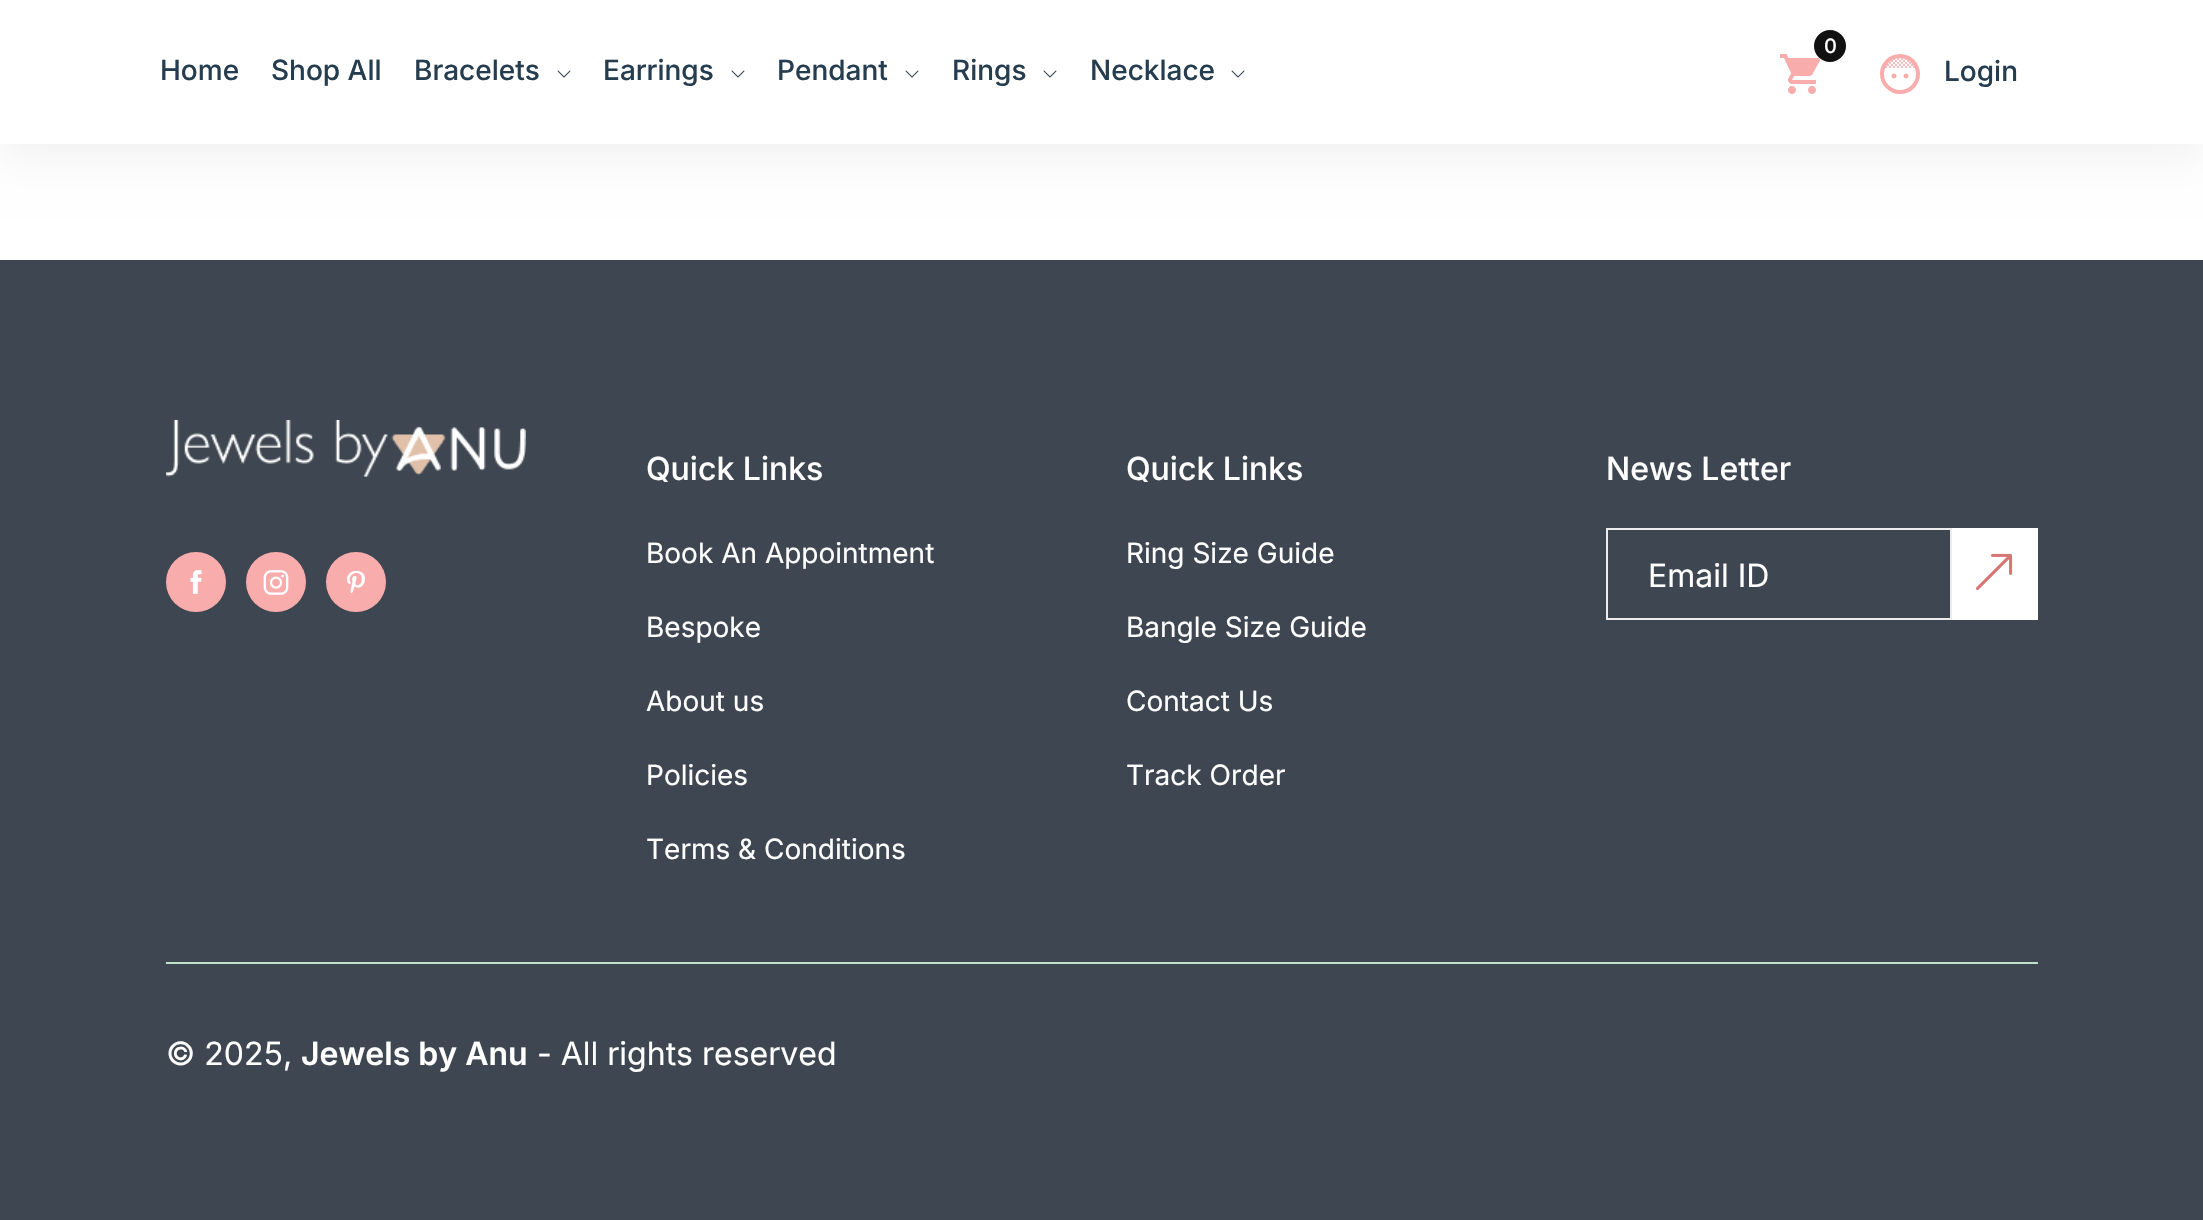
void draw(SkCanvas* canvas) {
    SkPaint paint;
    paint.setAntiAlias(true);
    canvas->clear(0xFFFFFFFF);
    paint.setColor(0x0D000000);
    paint.setMaskFilter(SkMaskFilter::MakeBlur(kNormal_SkBlurStyle, 20));
    canvas->drawRect(SkRect::MakeXYWH(0, 16, 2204, 144), paint);
    paint.setMaskFilter(nullptr);
    paint.setColor(0xFFFFFFFF);
    canvas->drawRect(SkRect::MakeXYWH(0, 0, 2203, 144), paint);
    SkFont font1(fontMgr->matchFamilyStyle("Inter", SkFontStyle(500, SkFontStyle::kNormal_Width, SkFontStyle::kUpright_Slant)), 28);
    font1.setSubpixel(true);
    paint.setColor(0xFF253D4E);
    canvas->drawString("Home", 160, 80, font1, paint);
    canvas->drawString("Shop All", 271, 80, font1, paint);
    canvas->drawString("Bracelets", 414, 80, font1, paint);
    canvas->drawImageRect(SkImages::DeferredFromEncodedData(SkData::MakeFromFileName("img1.png")), SkRect::MakeXYWH(557, 70, 14, 8), SkSamplingOptions());
    canvas->drawString("Earrings", 603, 80, font1, paint);
    canvas->drawImageRect(SkImages::DeferredFromEncodedData(SkData::MakeFromFileName("img1.png")), SkRect::MakeXYWH(731, 70, 14, 8), SkSamplingOptions());
    canvas->drawString("Pendant", 777, 80, font1, paint);
    canvas->drawImageRect(SkImages::DeferredFromEncodedData(SkData::MakeFromFileName("img1.png")), SkRect::MakeXYWH(905, 70, 14, 8), SkSamplingOptions());
    canvas->drawString("Rings", 952, 80, font1, paint);
    canvas->drawImageRect(SkImages::DeferredFromEncodedData(SkData::MakeFromFileName("img1.png")), SkRect::MakeXYWH(1043, 70, 14, 8), SkSamplingOptions());
    canvas->drawString("Necklace", 1090, 80, font1, paint);
    canvas->drawImageRect(SkImages::DeferredFromEncodedData(SkData::MakeFromFileName("img1.png")), SkRect::MakeXYWH(1231, 70, 14, 8), SkSamplingOptions());
    canvas->drawImageRect(SkImages::DeferredFromEncodedData(SkData::MakeFromFileName("img2.png")), SkRect::MakeXYWH(1780, 54, 40, 40), SkSamplingOptions());
    paint.setColor(0xFF111111);
    canvas->drawCircle(1830, 46, 16, paint);
    SkFont font2(fontMgr->matchFamilyStyle("Inter", SkFontStyle(500, SkFontStyle::kNormal_Width, SkFontStyle::kUpright_Slant)), 20);
    font2.setSubpixel(true);
    paint.setColor(0xFFFFFFFF);
    canvas->drawString("0", 1824, 53, font2, paint);
    canvas->drawImageRect(SkImages::DeferredFromEncodedData(SkData::MakeFromFileName("img3.png")), SkRect::MakeXYWH(1880, 54, 40, 40), SkSamplingOptions());
    paint.setColor(0xFF253D4E);
    canvas->drawString("Login", 1944, 81, font1, paint);
    paint.setColor(0xFF3E4751);
    canvas->drawRect(SkRect::MakeXYWH(0, 260, 2203, 960), paint);
    canvas->drawImageRect(SkImages::DeferredFromEncodedData(SkData::MakeFromFileName("img4.png")), SkRect::MakeXYWH(166, 420, 360, 57), SkSamplingOptions());
    paint.setColor(0xFFF9ACAC);
    canvas->drawCircle(196, 582, 30, paint);
    canvas->drawImageRect(SkImages::DeferredFromEncodedData(SkData::MakeFromFileName("img5.png")), SkRect::MakeXYWH(190, 570, 12, 24), SkSamplingOptions());
    canvas->drawCircle(276, 582, 30, paint);
    canvas->drawImageRect(SkImages::DeferredFromEncodedData(SkData::MakeFromFileName("img6.png")), SkRect::MakeXYWH(263, 570, 26, 25), SkSamplingOptions());
    canvas->drawCircle(356, 582, 30, paint);
    canvas->drawImageRect(SkImages::DeferredFromEncodedData(SkData::MakeFromFileName("img7.png")), SkRect::MakeXYWH(347, 570, 18, 24), SkSamplingOptions());
    SkFont font3(fontMgr->matchFamilyStyle("Inter", SkFontStyle(500, SkFontStyle::kNormal_Width, SkFontStyle::kUpright_Slant)), 32);
    font3.setSubpixel(true);
    paint.setColor(0xFFFFFFFF);
    canvas->drawString("Quick Links", 646, 480, font3, paint);
    SkFont font4(fontMgr->matchFamilyStyle("Inter", SkFontStyle::Normal()), 28);
    font4.setSubpixel(true);
    canvas->drawString("Book An Appointment", 646, 563, font4, paint);
    canvas->drawString("Bespoke", 646, 637, font4, paint);
    canvas->drawString("About us", 646, 711, font4, paint);
    canvas->drawString("Policies", 646, 785, font4, paint);
    canvas->drawString("Terms & Conditions", 646, 859, font4, paint);
    canvas->drawString("Quick Links", 1126, 480, font3, paint);
    canvas->drawString("Ring Size Guide", 1126, 563, font4, paint);
    canvas->drawString("Bangle Size Guide", 1126, 637, font4, paint);
    canvas->drawString("Contact Us", 1126, 711, font4, paint);
    canvas->drawString("Track Order", 1126, 785, font4, paint);
    canvas->drawString("News Letter", 1606, 480, font3, paint);
    paint.setStyle(SkPaint::kStroke_Style);
    paint.setStrokeWidth(2);
    paint.setColor(0xFFECECEC);
    canvas->drawRect(SkRect::MakeXYWH(1607, 529, 344, 90), paint);
    SkFont font5(fontMgr->matchFamilyStyle("Inter", SkFontStyle::Normal()), 32);
    font5.setSubpixel(true);
    paint.setStyle(SkPaint::kFill_Style);
    paint.setColor(0xFFFFFFFF);
    canvas->drawString("Email ID", 1648, 587, font5, paint);
    canvas->drawRect(SkRect::MakeXYWH(1952, 528, 86, 92), paint);
    canvas->drawImageRect(SkImages::DeferredFromEncodedData(SkData::MakeFromFileName("img8.png")), SkRect::MakeXYWH(1975, 553, 38, 38), SkSamplingOptions());
    paint.setColor(0xFFBCE3C9);
    canvas->drawRect(SkRect::MakeXYWH(166, 962, 1872, 2), paint);
    paint.setColor(0xFFFFFFFF);
    canvas->drawString("© 2025,", 166, 1065, font5, paint);
    SkFont font6(fontMgr->matchFamilyStyle("Inter", SkFontStyle(600, SkFontStyle::kNormal_Width, SkFontStyle::kUpright_Slant)), 32);
    font6.setSubpixel(true);
    canvas->drawString("Jewels by Anu", 301, 1065, font6, paint);
    canvas->drawString("- All rights reserved", 537, 1065, font5, paint);
}
